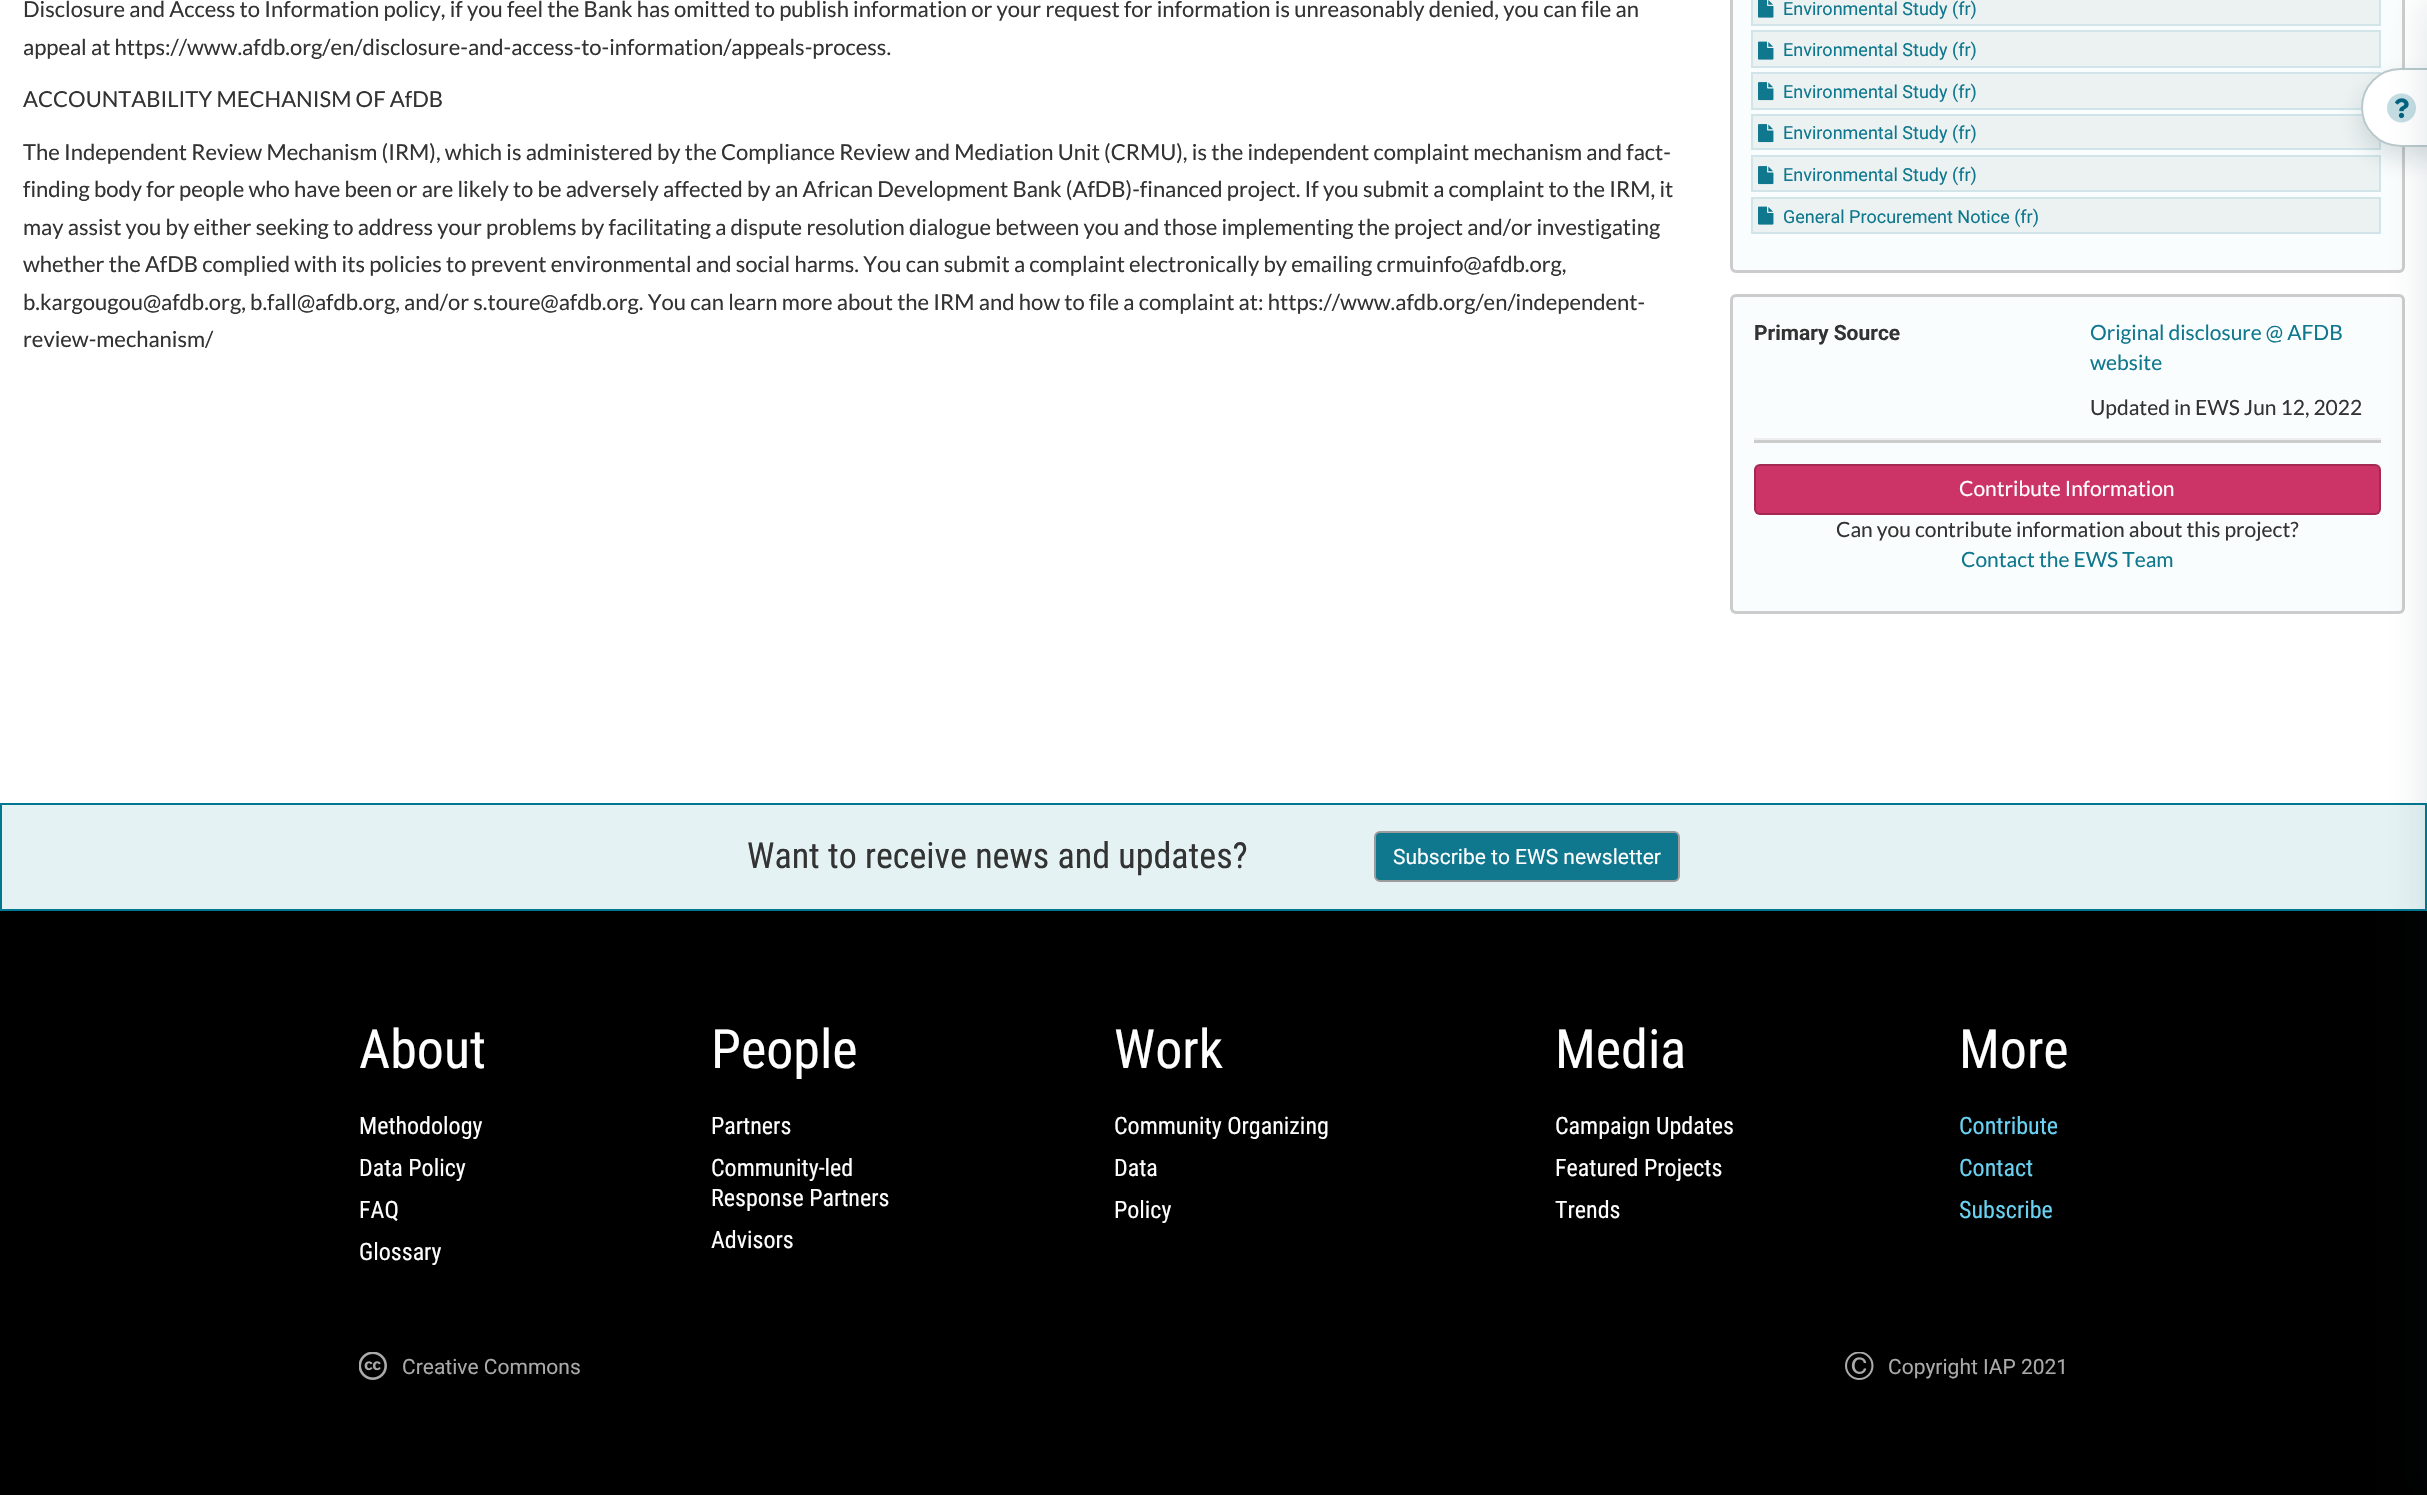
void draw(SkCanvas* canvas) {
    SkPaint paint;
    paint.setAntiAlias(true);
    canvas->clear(0xFFFFFFFF);
    SkFont font1(fontMgr->matchFamilyStyle("Lato", SkFontStyle::Normal()), 22);
    font1.setSubpixel(true);
    paint.setColor(0xFF333333);
    canvas->drawString("Disclosure and Access to Information policy, if you feel the Bank has omitted to publish information or your request for information is unreasonably denied, you can file an", 23, 17, font1, paint);
    canvas->drawString("appeal at https://www.afdb.org/en/disclosure-and-access-to-information/appeals-process.", 23, 55, font1, paint);
    canvas->drawString("ACCOUNTABILITY MECHANISM OF AfDB", 23, 107, font1, paint);
    canvas->drawString("The Independent Review Mechanism (IRM), which is administered by the Compliance Review and Mediation Unit (CRMU), is the independent complaint mechanism and fact-", 23, 160, font1, paint);
    canvas->drawString("finding body for people who have been or are likely to be adversely affected by an African Development Bank (AfDB)-financed project. If you submit a complaint to the IRM, it", 23, 197, font1, paint);
    canvas->drawString("may assist you by either seeking to address your problems by facilitating a dispute resolution dialogue between you and those implementing the project and/or investigating", 23, 235, font1, paint);
    canvas->drawString("whether the AfDB complied with its policies to prevent environmental and social harms. You can submit a complaint electronically by emailing crmuinfo@afdb.org,", 23, 272, font1, paint);
    canvas->drawString("b.kargougou@afdb.org, b.fall@afdb.org, and/or s.toure@afdb.org. You can learn more about the IRM and how to file a complaint at: https://www.afdb.org/en/independent-", 23, 310, font1, paint);
    canvas->drawString("review-mechanism/", 23, 347, font1, paint);
    paint.setColor(0xFFFAFDFD);
    canvas->drawRoundRect(SkRect::MakeXYWH(1731.5f, -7.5f, 672, 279), 4.5f, 4.5f, paint);
    paint.setStyle(SkPaint::kStroke_Style);
    paint.setStrokeWidth(3);
    paint.setColor(0xFFCCCCCC);
    canvas->drawRoundRect(SkRect::MakeXYWH(1731.5f, -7.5f, 672, 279), 4.5f, 4.5f, paint);
    paint.setStyle(SkPaint::kFill_Style);
    paint.setColor(0xFFECF1F1);
    canvas->drawRect(SkRect::MakeXYWH(1752, -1, 628, 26), paint);
    paint.setStyle(SkPaint::kStroke_Style);
    paint.setStrokeWidth(2);
    paint.setColor(0xFFD1E5E9);
    canvas->drawRect(SkRect::MakeXYWH(1752, -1, 628, 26), paint);
    canvas->drawImageRect(SkImages::DeferredFromEncodedData(SkData::MakeFromFileName("img1.png")), SkRect::MakeXYWH(1758, 0, 16, 18), SkSamplingOptions());
    SkFont font2(fontMgr->matchFamilyStyle("Roboto", SkFontStyle::Normal()), 18);
    font2.setSubpixel(true);
    paint.setStyle(SkPaint::kFill_Style);
    paint.setColor(0xFF0F778E);
    canvas->drawString("Environmental Study (fr)", 1783, 15, font2, paint);
    paint.setColor(0xFFECF1F1);
    canvas->drawRect(SkRect::MakeXYWH(1752, 31, 628, 36), paint);
    paint.setStyle(SkPaint::kStroke_Style);
    paint.setColor(0xFFD1E5E9);
    canvas->drawRect(SkRect::MakeXYWH(1752, 31, 628, 36), paint);
    canvas->drawImageRect(SkImages::DeferredFromEncodedData(SkData::MakeFromFileName("img2.png")), SkRect::MakeXYWH(1758, 41, 16, 19), SkSamplingOptions());
    paint.setStyle(SkPaint::kFill_Style);
    paint.setColor(0xFF0F778E);
    canvas->drawString("Environmental Study (fr)", 1783, 56, font2, paint);
    paint.setColor(0xFFECF1F1);
    canvas->drawRect(SkRect::MakeXYWH(1752, 73, 628, 36), paint);
    paint.setStyle(SkPaint::kStroke_Style);
    paint.setColor(0xFFD1E5E9);
    canvas->drawRect(SkRect::MakeXYWH(1752, 73, 628, 36), paint);
    canvas->drawImageRect(SkImages::DeferredFromEncodedData(SkData::MakeFromFileName("img3.png")), SkRect::MakeXYWH(1758, 82, 16, 19), SkSamplingOptions());
    paint.setStyle(SkPaint::kFill_Style);
    paint.setColor(0xFF0F778E);
    canvas->drawString("Environmental Study (fr)", 1783, 98, font2, paint);
    paint.setColor(0xFFECF1F1);
    canvas->drawRect(SkRect::MakeXYWH(1752, 115, 628, 34), paint);
    paint.setStyle(SkPaint::kStroke_Style);
    paint.setColor(0xFFD1E5E9);
    canvas->drawRect(SkRect::MakeXYWH(1752, 115, 628, 34), paint);
    canvas->drawImageRect(SkImages::DeferredFromEncodedData(SkData::MakeFromFileName("img3.png")), SkRect::MakeXYWH(1758, 124, 16, 19), SkSamplingOptions());
    paint.setStyle(SkPaint::kFill_Style);
    paint.setColor(0xFF0F778E);
    canvas->drawString("Environmental Study (fr)", 1783, 139, font2, paint);
    paint.setColor(0xFFECF1F1);
    canvas->drawRect(SkRect::MakeXYWH(1752, 156, 628, 35), paint);
    paint.setStyle(SkPaint::kStroke_Style);
    paint.setColor(0xFFD1E5E9);
    canvas->drawRect(SkRect::MakeXYWH(1752, 156, 628, 35), paint);
    canvas->drawImageRect(SkImages::DeferredFromEncodedData(SkData::MakeFromFileName("img3.png")), SkRect::MakeXYWH(1758, 166, 16, 19), SkSamplingOptions());
    paint.setStyle(SkPaint::kFill_Style);
    paint.setColor(0xFF0F778E);
    canvas->drawString("Environmental Study (fr)", 1783, 181, font2, paint);
    paint.setColor(0xFFECF1F1);
    canvas->drawRect(SkRect::MakeXYWH(1752, 198, 628, 35), paint);
    paint.setStyle(SkPaint::kStroke_Style);
    paint.setColor(0xFFD1E5E9);
    canvas->drawRect(SkRect::MakeXYWH(1752, 198, 628, 35), paint);
    canvas->drawImageRect(SkImages::DeferredFromEncodedData(SkData::MakeFromFileName("img2.png")), SkRect::MakeXYWH(1758, 206, 16, 19), SkSamplingOptions());
    paint.setStyle(SkPaint::kFill_Style);
    paint.setColor(0xFF0F778E);
    canvas->drawString("General Procurement Notice (fr)", 1783, 223, font2, paint);
    paint.setColor(0xFFFAFDFD);
    canvas->drawRoundRect(SkRect::MakeXYWH(1731.5f, 295.5f, 672, 317), 4.5f, 4.5f, paint);
    paint.setStyle(SkPaint::kStroke_Style);
    paint.setStrokeWidth(3);
    paint.setColor(0xFFCCCCCC);
    canvas->drawRoundRect(SkRect::MakeXYWH(1731.5f, 295.5f, 672, 317), 4.5f, 4.5f, paint);
    SkFont font3(fontMgr->matchFamilyStyle("Roboto", SkFontStyle::Bold()), 21);
    font3.setSubpixel(true);
    paint.setStyle(SkPaint::kFill_Style);
    paint.setColor(0xFF333333);
    canvas->drawString("Primary Source", 1754, 340, font3, paint);
    SkFont font4(fontMgr->matchFamilyStyle("Lato", SkFontStyle::Normal()), 21);
    font4.setSubpixel(true);
    paint.setColor(0xFF0F778E);
    canvas->drawString("Original disclosure @ AFDB", 2090, 340, font4, paint);
    canvas->drawString("website", 2090, 370, font4, paint);
    paint.setColor(0xFF333333);
    canvas->drawString("Updated in EWS Jun 12, 2022", 2090, 415, font4, paint);
    paint.setColor(0xFFCCCCCC);
    canvas->drawRect(SkRect::MakeXYWH(1754, 440, 627, 3), paint);
    paint.setColor(0xFFEEEEEE);
    canvas->drawRect(SkRect::MakeXYWH(1754, 438, 627, 2), paint);
    paint.setColor(0xFFCC3366);
    canvas->drawRoundRect(SkRect::MakeXYWH(1754, 464, 627, 51), 6, 6, paint);
    paint.setStyle(SkPaint::kStroke_Style);
    paint.setStrokeWidth(2);
    paint.setColor(0x33000000);
    canvas->drawRoundRect(SkRect::MakeXYWH(1755, 465, 625, 49), 5, 5, paint);
    paint.setStyle(SkPaint::kFill_Style);
    paint.setColor(0xFFFFFFFF);
    canvas->drawString("Contribute Information", 1959, 496, font4, paint);
    paint.setColor(0xFF333333);
    canvas->drawString("Can you contribute information about this project?", 1836, 537, font4, paint);
    paint.setColor(0xFF0F778E);
    canvas->drawString("Contact the EWS Team", 1961, 567, font4, paint);
    paint.setColor(0x260E3841);
    paint.setMaskFilter(SkMaskFilter::MakeBlur(kNormal_SkBlurStyle, 12));
    canvas->drawRoundRect(SkRect::MakeXYWH(2361, 80, 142, 79), 39.5f, 39.5f, paint);
    paint.setMaskFilter(nullptr);
    paint.setColor(0xFFFFFFFF);
    canvas->drawPath(SkPathBuilder().moveTo(2400.5f, 68).lineTo(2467, 68).lineTo(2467, 147).lineTo(2400.5f, 147).cubicTo(2378.5f, 147, 2361, 129.5f, 2361, 107.5f).cubicTo(2361, 85.5f, 2378.5f, 68, 2400.5f, 68).close().detach(), paint);
    paint.setStyle(SkPaint::kStroke_Style);
    paint.setColor(0x4D134954);
    canvas->drawPath(SkPathBuilder().moveTo(2400.5f, 69).lineTo(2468, 69).lineTo(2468, 146).lineTo(2400.5f, 146).cubicTo(2379, 146, 2362, 129, 2362, 107.5f).cubicTo(2362, 86, 2379, 69, 2400.5f, 69).close().detach(), paint);
    canvas->drawImageRect(SkImages::DeferredFromEncodedData(SkData::MakeFromFileName("img4.png")), SkRect::MakeXYWH(2387, 93, 29, 30), SkSamplingOptions());
    paint.setStyle(SkPaint::kFill_Style);
    paint.setColor(0xFFE5F2F4);
    canvas->drawRect(SkRect::MakeXYWH(1, 804, 2425, 106), paint);
    paint.setStyle(SkPaint::kStroke_Style);
    paint.setColor(0xFF007790);
    canvas->drawRect(SkRect::MakeXYWH(1, 804, 2425, 106), paint);
    paint.setStyle(SkPaint::kFill_Style);
    paint.setColor(0xFF000000);
    canvas->drawRect(SkRect::MakeXYWH(0, 911, 2427, 584), paint);
    paint.setColor(0x1A0E3841);
    paint.setMaskFilter(SkMaskFilter::MakeBlur(kNormal_SkBlurStyle, 18));
    canvas->drawRect(SkRect::MakeXYWH(2421, 0, 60, 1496), paint);
    paint.setMaskFilter(nullptr);
    SkFont font5(fontMgr->matchFamilyStyle("Roboto Condensed", SkFontStyle::Normal()), 36);
    font5.setSubpixel(true);
    paint.setColor(0xFF333333);
    canvas->drawString("Want to receive news and updates?", 747, 868, font5, paint);
    paint.setColor(0xFF0F778E);
    canvas->drawRoundRect(SkRect::MakeXYWH(1375, 832, 304, 49), 5, 5, paint);
    paint.setStyle(SkPaint::kStroke_Style);
    paint.setColor(0xFF9C9C9C);
    canvas->drawRoundRect(SkRect::MakeXYWH(1375, 832, 304, 49), 5, 5, paint);
    SkFont font6(fontMgr->matchFamilyStyle("Roboto", SkFontStyle::Normal()), 21);
    font6.setSubpixel(true);
    paint.setStyle(SkPaint::kFill_Style);
    paint.setColor(0xFFFFFFFF);
    canvas->drawString("Subscribe to EWS newsletter", 1393, 864, font6, paint);
    SkFont font7(fontMgr->matchFamilyStyle("Roboto Condensed", SkFontStyle::Normal()), 54);
    font7.setSubpixel(true);
    canvas->drawString("About", 359, 1068, font7, paint);
    SkFont font8(fontMgr->matchFamilyStyle("Roboto Condensed", SkFontStyle::Normal()), 24);
    font8.setSubpixel(true);
    canvas->drawString("Methodology", 359, 1134, font8, paint);
    canvas->drawString("Data Policy", 359, 1176, font8, paint);
    canvas->drawString("FAQ", 359, 1218, font8, paint);
    canvas->drawString("Glossary", 359, 1260, font8, paint);
    canvas->drawString("People", 711, 1068, font7, paint);
    canvas->drawString("Partners", 711, 1134, font8, paint);
    canvas->drawString("Community-led", 711, 1176, font8, paint);
    canvas->drawString("Response Partners", 711, 1206, font8, paint);
    canvas->drawString("Advisors", 711, 1248, font8, paint);
    canvas->drawString("Work", 1114, 1068, font7, paint);
    canvas->drawString("Community Organizing", 1114, 1134, font8, paint);
    canvas->drawString("Data", 1114, 1176, font8, paint);
    canvas->drawString("Policy", 1114, 1218, font8, paint);
    canvas->drawString("Media", 1555, 1068, font7, paint);
    canvas->drawString("Campaign Updates", 1555, 1134, font8, paint);
    canvas->drawString("Featured Projects", 1555, 1176, font8, paint);
    canvas->drawString("Trends", 1555, 1218, font8, paint);
    canvas->drawString("More", 1959, 1068, font7, paint);
    paint.setColor(0xFF69D2F2);
    canvas->drawString("Contribute", 1959, 1134, font8, paint);
    canvas->drawString("Contact", 1959, 1176, font8, paint);
    canvas->drawString("Subscribe", 1959, 1218, font8, paint);
    canvas->drawImageRect(SkImages::DeferredFromEncodedData(SkData::MakeFromFileName("img5.png")), SkRect::MakeXYWH(359, 1352, 28, 28), SkSamplingOptions());
    paint.setColor(0xFFAAAAAA);
    canvas->drawString("Creative Commons", 402, 1374, font6, paint);
    canvas->drawImageRect(SkImages::DeferredFromEncodedData(SkData::MakeFromFileName("img6.png")), SkRect::MakeXYWH(1845, 1352, 29, 28), SkSamplingOptions());
    canvas->drawString("Copyright IAP 2021", 1888, 1374, font6, paint);
}
